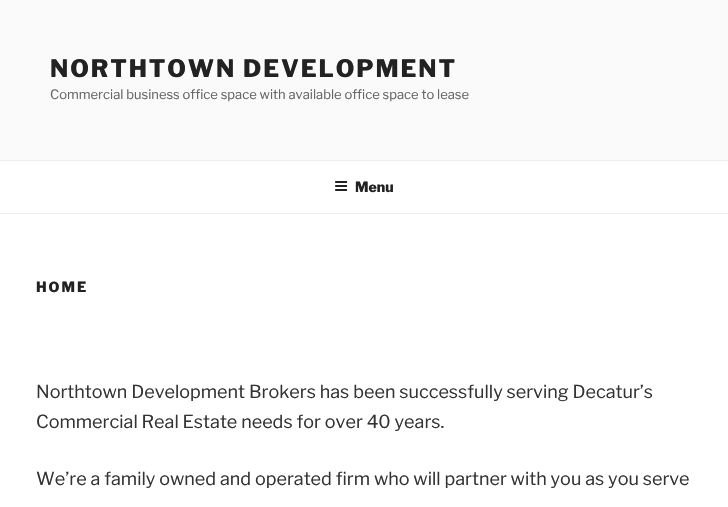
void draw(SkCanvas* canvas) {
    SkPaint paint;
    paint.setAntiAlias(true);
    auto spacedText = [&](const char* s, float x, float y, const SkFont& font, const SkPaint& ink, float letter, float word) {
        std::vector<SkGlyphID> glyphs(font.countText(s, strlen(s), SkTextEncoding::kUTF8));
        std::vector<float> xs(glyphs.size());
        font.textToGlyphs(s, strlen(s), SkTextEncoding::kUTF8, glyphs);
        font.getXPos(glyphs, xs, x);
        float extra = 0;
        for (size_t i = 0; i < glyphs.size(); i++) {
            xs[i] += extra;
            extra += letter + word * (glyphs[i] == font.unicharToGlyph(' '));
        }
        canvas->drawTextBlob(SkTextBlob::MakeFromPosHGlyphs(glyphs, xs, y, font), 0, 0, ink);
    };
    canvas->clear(0xFFFFFFFF);
    paint.setColor(0xFFFAFAFA);
    canvas->drawRect(SkRect::MakeXYWH(0, 0, 728, 160), paint);
    SkFont font1(fontMgr->matchFamilyStyle("Libre Franklin", SkFontStyle(100, SkFontStyle::kNormal_Width, SkFontStyle::kUpright_Slant)), 24);
    font1.setSubpixel(true);
    paint.setColor(0xFF222222);
    spacedText("NORTHTOWN DEVELOPMENT", 50, 77, font1, paint, 1.9f, 0);
    SkFont font2(fontMgr->matchFamilyStyle("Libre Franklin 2", SkFontStyle(100, SkFontStyle::kNormal_Width, SkFontStyle::kUpright_Slant)), 13);
    font2.setSubpixel(true);
    paint.setColor(0xFF666666);
    canvas->drawString("Commercial business office space with available office space to lease", 50, 99, font2, paint);
    paint.setColor(0xFFEEEEEE);
    canvas->drawRect(SkRect::MakeXYWH(0, 160, 728, 1), paint);
    canvas->drawRect(SkRect::MakeXYWH(0, 213, 728, 1), paint);
    canvas->drawImageRect(SkImages::DeferredFromEncodedData(SkData::MakeFromFileName("img1.png")), SkRect::MakeXYWH(335, 181, 13, 10), SkSamplingOptions());
    SkFont font3(fontMgr->matchFamilyStyle("Libre Franklin", SkFontStyle(100, SkFontStyle::kNormal_Width, SkFontStyle::kUpright_Slant)), 14);
    font3.setSubpixel(true);
    paint.setColor(0xFF222222);
    canvas->drawString("Menu", 355, 192, font3, paint);
    spacedText("HOME", 36, 292, font3, paint, 2, 0);
    SkFont font4(fontMgr->matchFamilyStyle("Libre Franklin 2", SkFontStyle(100, SkFontStyle::kNormal_Width, SkFontStyle::kUpright_Slant)), 18);
    font4.setSubpixel(true);
    paint.setColor(0xFF333333);
    canvas->drawString("Northtown Development Brokers has been successfully serving Decatur’s", 36, 398, font4, paint);
    canvas->drawString("Commercial Real Estate needs for over 40 years.", 36, 428, font4, paint);
    canvas->drawString("We’re a family owned and operated firm who will partner with you as you serve", 36, 485, font4, paint);
}
